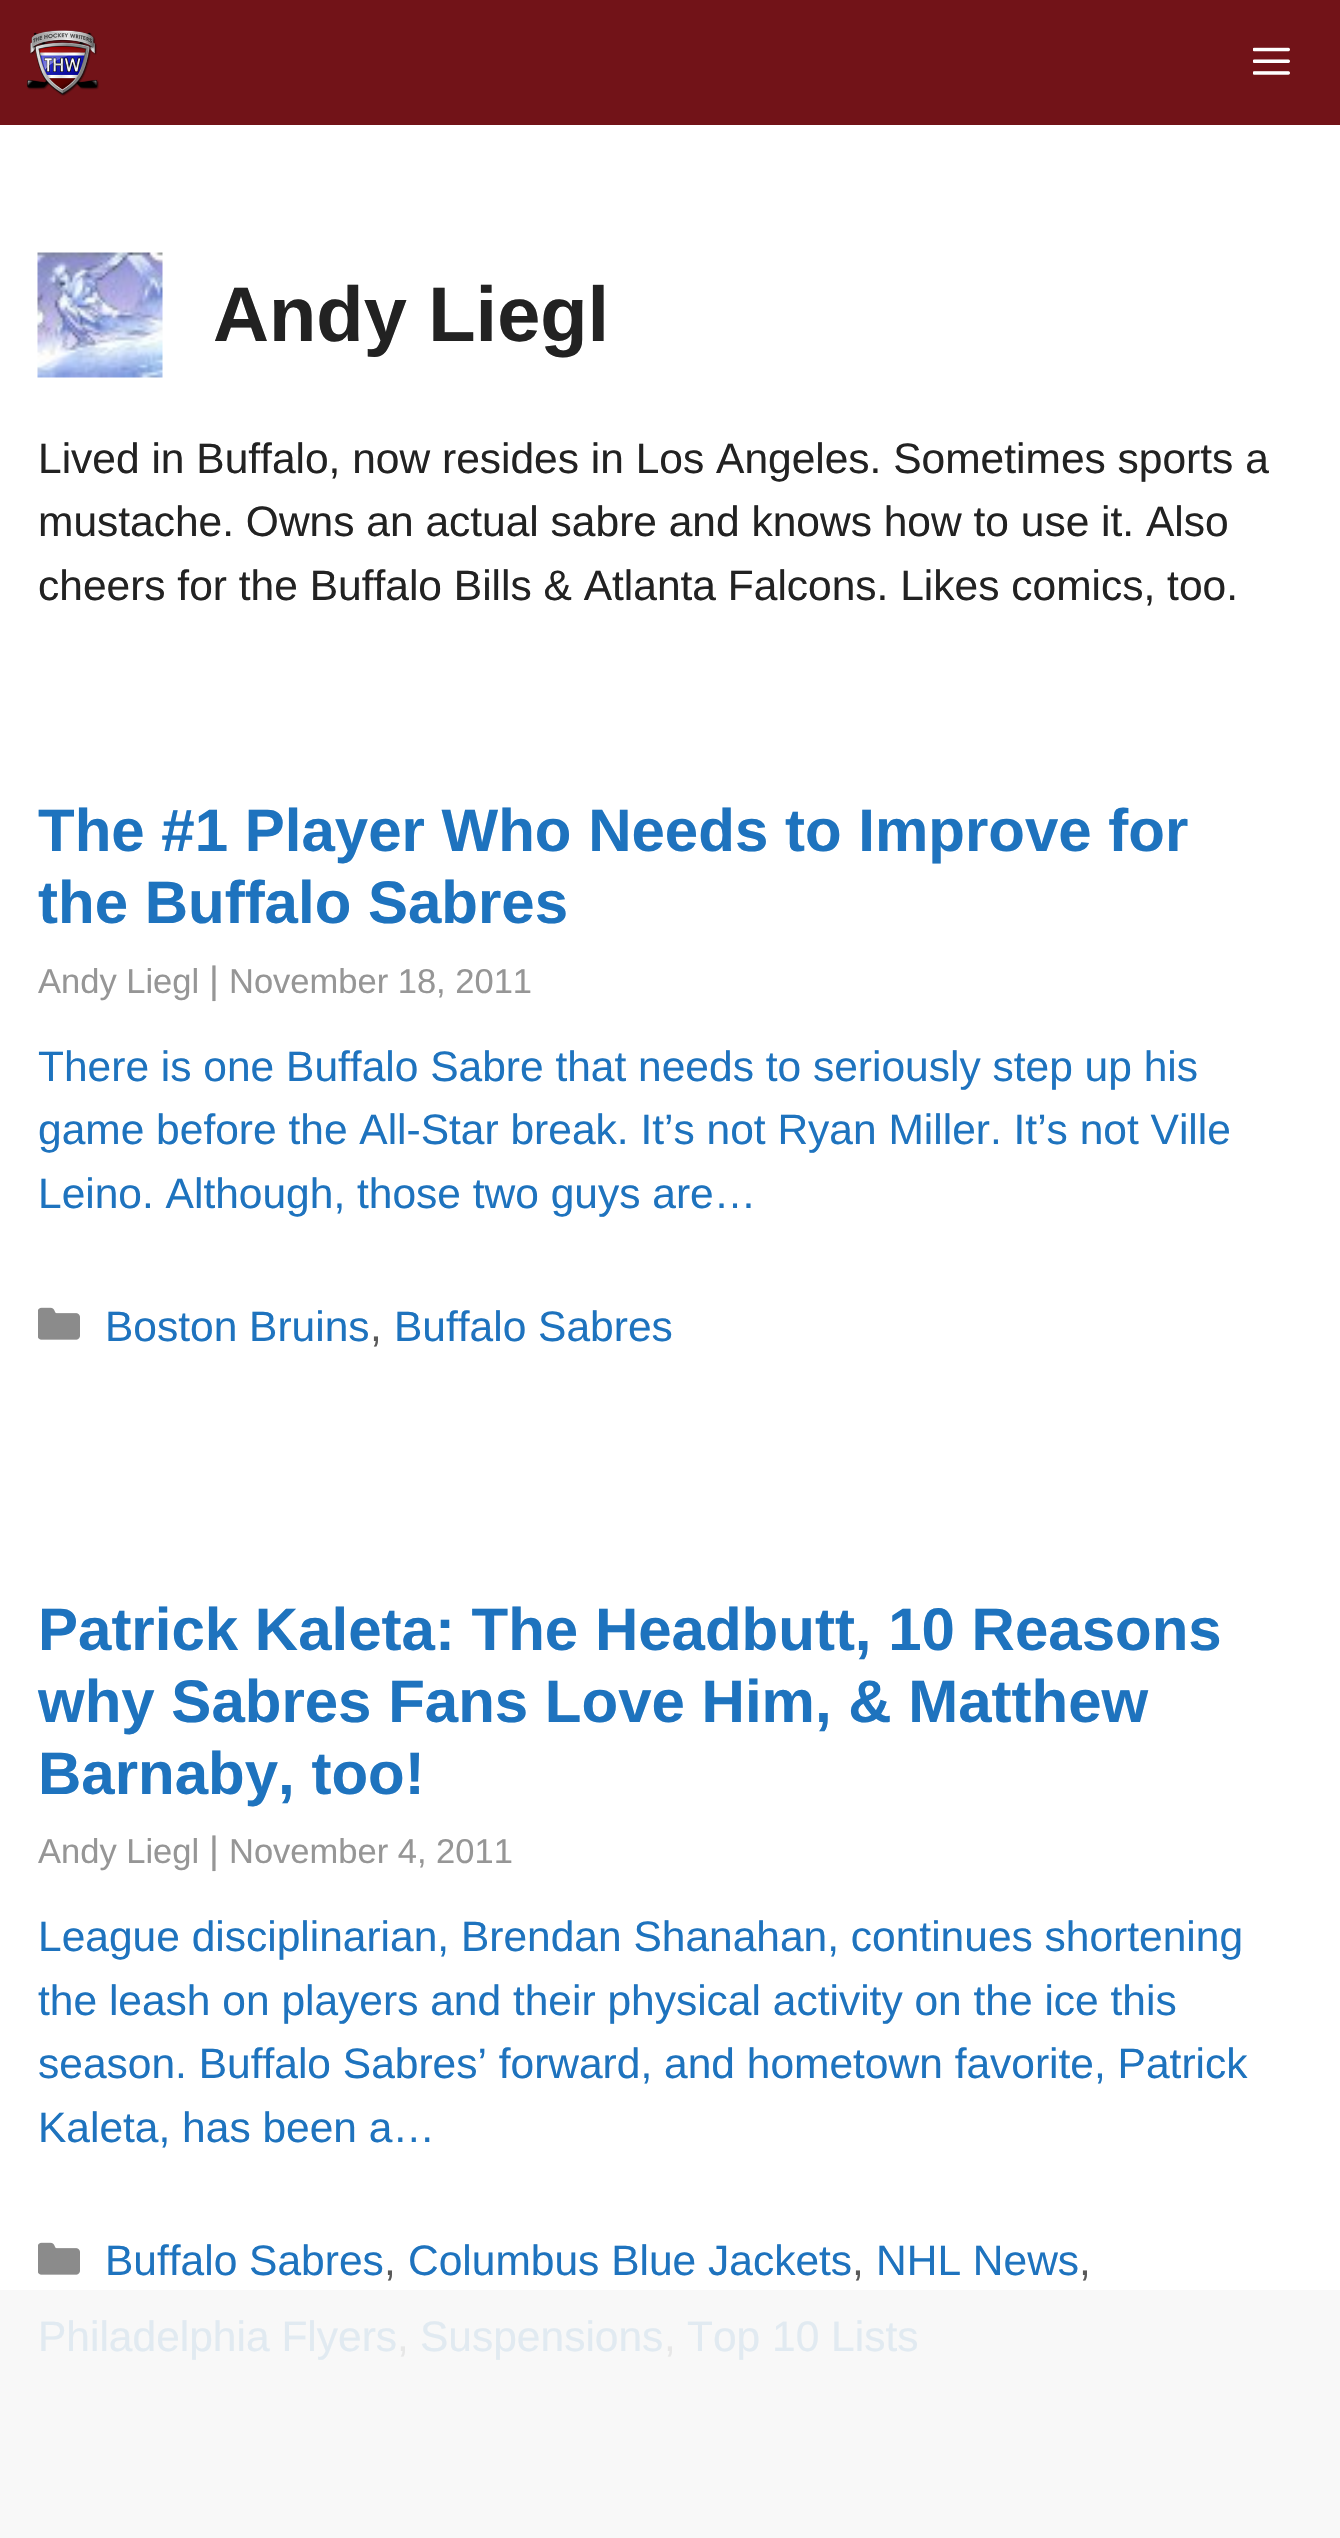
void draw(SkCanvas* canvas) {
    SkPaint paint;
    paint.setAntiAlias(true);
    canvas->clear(0xFFFFFFFF);
    paint.setColor(0xFFF8F8F8);
    canvas->drawRect(SkRect::MakeXYWH(0, 2290, 1340, 248), paint);
    paint.setColor(0xFF721318);
    canvas->drawRect(SkRect::MakeXYWH(0, 0, 1340, 125), paint);
    canvas->drawImageRect(SkImages::DeferredFromEncodedData(SkData::MakeFromFileName("img1.png")), SkRect::MakeXYWH(26, 30, 73, 66), SkSamplingOptions());
    canvas->drawImageRect(SkImages::DeferredFromEncodedData(SkData::MakeFromFileName("img2.png")), SkRect::MakeXYWH(1253, 47, 37, 28), SkSamplingOptions());
    canvas->drawImageRect(SkImages::DeferredFromEncodedData(SkData::MakeFromFileName("img3.png")), SkRect::MakeXYWH(37, 252, 126, 126), SkSamplingOptions());
    SkFont font1(fontMgr->matchFamilyStyle("Liberation Sans", SkFontStyle::Bold()), 77.5f);
    font1.setSubpixel(true);
    paint.setColor(0xFF222222);
    canvas->drawString("Andy Liegl", 213, 341, font1, paint);
    SkFont font2(fontMgr->matchFamilyStyle("Liberation Sans", SkFontStyle::Normal()), 42.5f);
    font2.setSubpixel(true);
    canvas->drawString("Lived in Buffalo, now resides in Los Angeles. Sometimes sports a", 38, 473, font2, paint);
    canvas->drawString("mustache. Owns an actual sabre and knows how to use it. Also", 38, 536, font2, paint);
    canvas->drawString("cheers for the Buffalo Bills & Atlanta Falcons. Likes comics, too.", 38, 600, font2, paint);
    SkFont font3(fontMgr->matchFamilyStyle("Liberation Sans", SkFontStyle::Bold()), 60);
    font3.setSubpixel(true);
    paint.setColor(0xFF1E73BE);
    canvas->drawString("The #1 Player Who Needs to Improve for", 38, 851, font3, paint);
    canvas->drawString("the Buffalo Sabres", 38, 923, font3, paint);
    SkFont font4(fontMgr->matchFamilyStyle("Liberation Sans", SkFontStyle::Normal()), 34.5f);
    font4.setSubpixel(true);
    paint.setColor(0xFF969696);
    canvas->drawString("Andy Liegl", 38, 993, font4, paint);
    SkFont font5(fontMgr->matchFamilyStyle("Liberation Sans", SkFontStyle::Normal()), 38);
    font5.setSubpixel(true);
    canvas->drawString("|", 209, 993, font5, paint);
    canvas->drawString("November 18, 2011", 229, 993, font4, paint);
    paint.setColor(0xFF1E73BE);
    canvas->drawString("There is one Buffalo Sabre that needs to seriously step up his", 38, 1081, font2, paint);
    canvas->drawString("game before the All-Star break. It’s not Ryan Miller. It’s not Ville", 38, 1144, font2, paint);
    canvas->drawString("Leino. Although, those two guys are…", 38, 1208, font2, paint);
    canvas->drawImageRect(SkImages::DeferredFromEncodedData(SkData::MakeFromFileName("img4.png")), SkRect::MakeXYWH(38, 1307, 42, 33), SkSamplingOptions());
    canvas->drawString("Boston Bruins", 105, 1341, font2, paint);
    paint.setColor(0xFF595959);
    canvas->drawString(",", 370, 1341, font2, paint);
    paint.setColor(0xFF1E73BE);
    canvas->drawString("Buffalo Sabres", 394, 1341, font2, paint);
    canvas->drawString("Patrick Kaleta: The Headbutt, 10 Reasons", 38, 1650, font3, paint);
    canvas->drawString("why Sabres Fans Love Him, & Matthew", 38, 1722, font3, paint);
    canvas->drawString("Barnaby, too!", 38, 1794, font3, paint);
    paint.setColor(0xFF969696);
    canvas->drawString("Andy Liegl", 38, 1863, font4, paint);
    canvas->drawString("|", 209, 1863, font5, paint);
    canvas->drawString("November 4, 2011", 229, 1863, font4, paint);
    paint.setColor(0xFF1E73BE);
    canvas->drawString("League disciplinarian, Brendan Shanahan, continues shortening", 38, 1951, font2, paint);
    canvas->drawString("the leash on players and their physical activity on the ice this", 38, 2015, font2, paint);
    canvas->drawString("season. Buffalo Sabres’ forward, and hometown favorite, Patrick", 38, 2078, font2, paint);
    canvas->drawString("Kaleta, has been a…", 38, 2142, font2, paint);
    canvas->drawImageRect(SkImages::DeferredFromEncodedData(SkData::MakeFromFileName("img4.png")), SkRect::MakeXYWH(38, 2242, 42, 33), SkSamplingOptions());
    canvas->drawString("Buffalo Sabres", 105, 2275, font2, paint);
    paint.setColor(0xFF595959);
    canvas->drawString(",", 384, 2275, font2, paint);
    paint.setColor(0xFF1E73BE);
    canvas->drawString("Columbus Blue Jackets", 408, 2275, font2, paint);
    paint.setColor(0xFF595959);
    canvas->drawString(",", 852, 2275, font2, paint);
    paint.setColor(0xFF1E73BE);
    canvas->drawString("NHL News", 876, 2275, font2, paint);
    paint.setColor(0xFF595959);
    canvas->drawString(",", 1079, 2275, font2, paint);
    paint.setColor(0xFFE1EAF1);
    canvas->drawString("Philadelphia Flyers", 38, 2351, font2, paint);
    paint.setColor(0xFFE7E7E7);
    canvas->drawString(",", 397, 2351, font2, paint);
    paint.setColor(0xFFE1EAF1);
    canvas->drawString("Suspensions", 420, 2351, font2, paint);
    paint.setColor(0xFFE7E7E7);
    canvas->drawString(",", 664, 2351, font2, paint);
    paint.setColor(0xFFE1EAF1);
    canvas->drawString("Top 10 Lists", 687, 2351, font2, paint);
}
